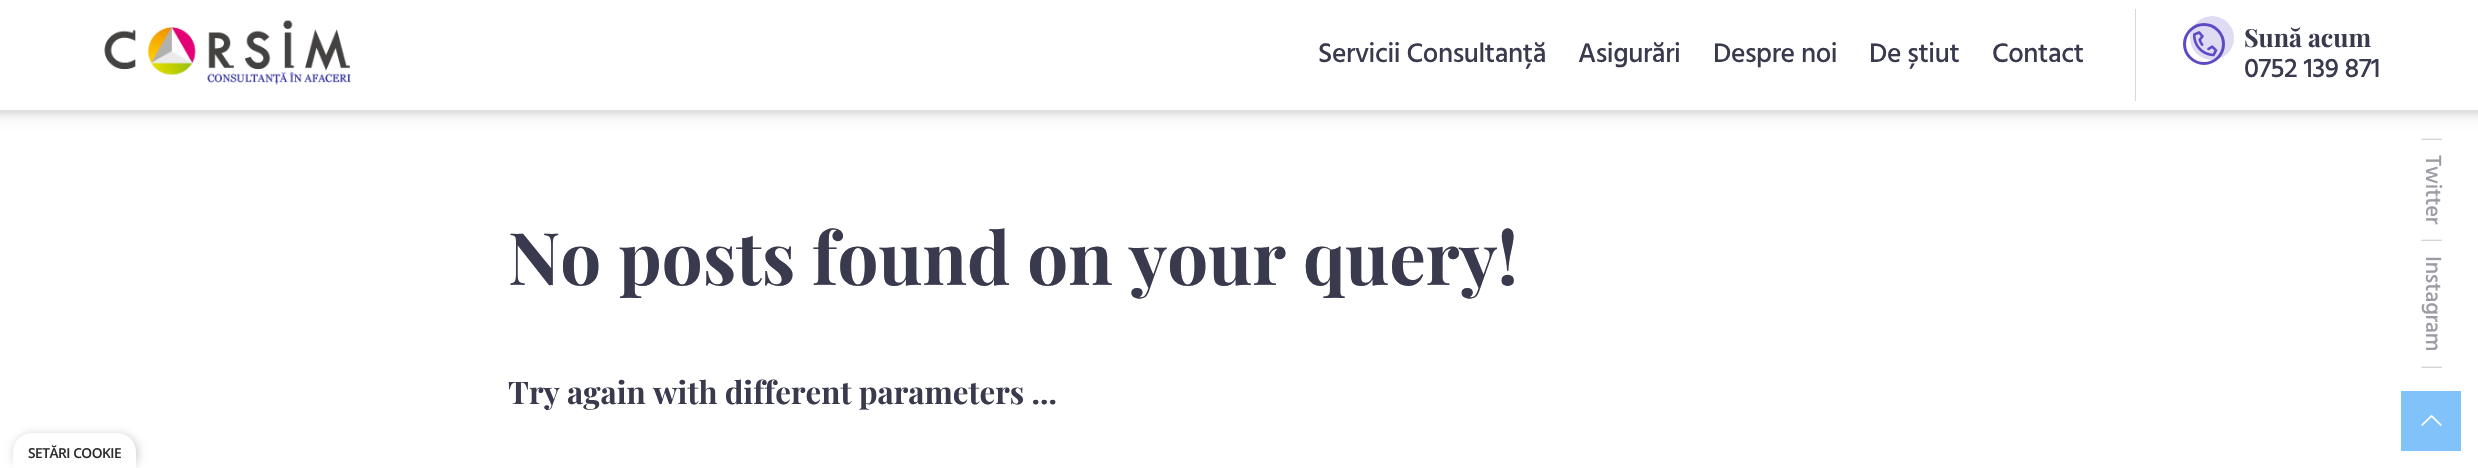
void draw(SkCanvas* canvas) {
    SkPaint paint;
    paint.setAntiAlias(true);
    auto spacedText = [&](const char* s, float x, float y, const SkFont& font, const SkPaint& ink, float letter, float word) {
        std::vector<SkGlyphID> glyphs(font.countText(s, strlen(s), SkTextEncoding::kUTF8));
        std::vector<float> xs(glyphs.size());
        font.textToGlyphs(s, strlen(s), SkTextEncoding::kUTF8, glyphs);
        font.getXPos(glyphs, xs, x);
        float extra = 0;
        for (size_t i = 0; i < glyphs.size(); i++) {
            xs[i] += extra;
            extra += letter + word * (glyphs[i] == font.unicharToGlyph(' '));
        }
        canvas->drawTextBlob(SkTextBlob::MakeFromPosHGlyphs(glyphs, xs, y, font), 0, 0, ink);
    };
    canvas->clear(0xFFFFFFFF);
    paint.setColor(0x33000000);
    paint.setMaskFilter(SkMaskFilter::MakeBlur(kNormal_SkBlurStyle, 6));
    canvas->drawRect(SkRect::MakeXYWH(-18, 3, 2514, 110), paint);
    paint.setMaskFilter(nullptr);
    paint.setColor(0xFFFFFFFF);
    canvas->drawRect(SkRect::MakeXYWH(0, 0, 2478, 110), paint);
    canvas->drawImageRect(SkImages::DeferredFromEncodedData(SkData::MakeFromFileName("img1.png")), SkRect::MakeXYWH(104, 20, 247, 65), SkSamplingOptions());
    SkFont font1(fontMgr->matchFamilyStyle("Hind", SkFontStyle(500, SkFontStyle::kNormal_Width, SkFontStyle::kUpright_Slant)), 27.5f);
    font1.setSubpixel(true);
    paint.setColor(0xFF393A4E);
    spacedText("Servicii Consultanță", 1318, 62, font1, paint, -0.4f, 0);
    spacedText("Asigurări", 1578, 62, font1, paint, -0.4f, 0);
    spacedText("Despre noi", 1713, 62, font1, paint, -0.4f, 0);
    spacedText("De știut", 1869, 62, font1, paint, -0.4f, 0);
    spacedText("Contact", 1992, 62, font1, paint, -0.4f, 0);
    paint.setColor(0xFFD7D8DC);
    canvas->drawRect(SkRect::MakeXYWH(2135, 9, 1, 92), paint);
    paint.setColor(0xFFDFDBF3);
    canvas->drawCircle(2212, 38, 22, paint);
    paint.setStyle(SkPaint::kStroke_Style);
    paint.setStrokeWidth(3);
    paint.setColor(0xFF5E4AC5);
    canvas->drawCircle(2204, 44, 19.5f, paint);
    canvas->drawImageRect(SkImages::DeferredFromEncodedData(SkData::MakeFromFileName("img2.png")), SkRect::MakeXYWH(2193, 31, 25, 26), SkSamplingOptions());
    SkFont font2(fontMgr->matchFamilyStyle("Playfair Display", SkFontStyle::Bold()), 25);
    font2.setSubpixel(true);
    paint.setStyle(SkPaint::kFill_Style);
    paint.setColor(0xFF393A4E);
    canvas->drawString("Sună acum", 2244, 47, font2, paint);
    spacedText("0752 139 871", 2244, 77, font1, paint, -0.5f, 0);
    SkFont font3(fontMgr->matchFamilyStyle("Playfair Display", SkFontStyle::Bold()), 72.5f);
    font3.setSubpixel(true);
    canvas->drawString("No posts found on your query!", 508, 285, font3, paint);
    SkFont font4(fontMgr->matchFamilyStyle("Playfair Display", SkFontStyle::Bold()), 31.25f);
    font4.setSubpixel(true);
    canvas->drawString("Try again with different parameters ...", 508, 404, font4, paint);
    SkFont font5(fontMgr->matchFamilyStyle("Hind", SkFontStyle(300, SkFontStyle::kNormal_Width, SkFontStyle::kUpright_Slant)), 22.5f);
    font5.setSubpixel(true);
    paint.setColor(0xFFD3D2D6);
    canvas->save();
    canvas->rotate(90, 2426, 137);
    spacedText("|", 2426, 137, font5, paint, -0.25f, 0);
    canvas->restore();
    SkFont font6(fontMgr->matchFamilyStyle("Hind", SkFontStyle(500, SkFontStyle::kNormal_Width, SkFontStyle::kUpright_Slant)), 22.5f);
    font6.setSubpixel(true);
    paint.setColor(0xFF9D9BA3);
    canvas->save();
    canvas->rotate(90, 2426, 155);
    spacedText("Twitter", 2426, 155, font6, paint, -0.25f, 0);
    canvas->restore();
    paint.setColor(0xFFD3D2D6);
    canvas->save();
    canvas->rotate(90, 2426, 238);
    spacedText("|", 2426, 238, font5, paint, -0.25f, 0);
    canvas->restore();
    paint.setColor(0xFF9D9BA3);
    canvas->save();
    canvas->rotate(90, 2426, 256);
    spacedText("Instagram", 2426, 256, font6, paint, -0.25f, 0);
    canvas->restore();
    paint.setColor(0xFFD3D2D6);
    canvas->save();
    canvas->rotate(90, 2426, 365);
    spacedText("|", 2426, 365, font5, paint, -0.25f, 0);
    canvas->restore();
    paint.setColor(0x33000000);
    paint.setMaskFilter(SkMaskFilter::MakeBlur(kNormal_SkBlurStyle, 5));
    canvas->drawRoundRect(SkRect::MakeXYWH(14, 435, 124, 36), 19, 19, paint);
    paint.setMaskFilter(nullptr);
    paint.setColor(0xFFFFFFFF);
    canvas->drawPath(SkPathBuilder().moveTo(32, 433).lineTo(117, 433).cubicTo(127.5f, 433, 136, 441.5f, 136, 452).lineTo(136, 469).lineTo(13, 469).lineTo(13, 452).cubicTo(13, 441.5f, 21.5f, 433, 32, 433).close().detach(), paint);
    SkFont font7(fontMgr->matchFamilyStyle("Open Sans", SkFontStyle(600, SkFontStyle::kNormal_Width, SkFontStyle::kUpright_Slant)), 13.75f);
    font7.setSubpixel(true);
    paint.setColor(0xFF2D2D2D);
    spacedText("SETĂRI COOKIE", 28, 458, font7, paint, -0.5f, 0);
    paint.setColor(0xFF81C2FA);
    canvas->drawRect(SkRect::MakeXYWH(2401, 391, 60, 60), paint);
    canvas->drawImageRect(SkImages::DeferredFromEncodedData(SkData::MakeFromFileName("img3.png")), SkRect::MakeXYWH(2421, 415, 21, 11), SkSamplingOptions());
}
